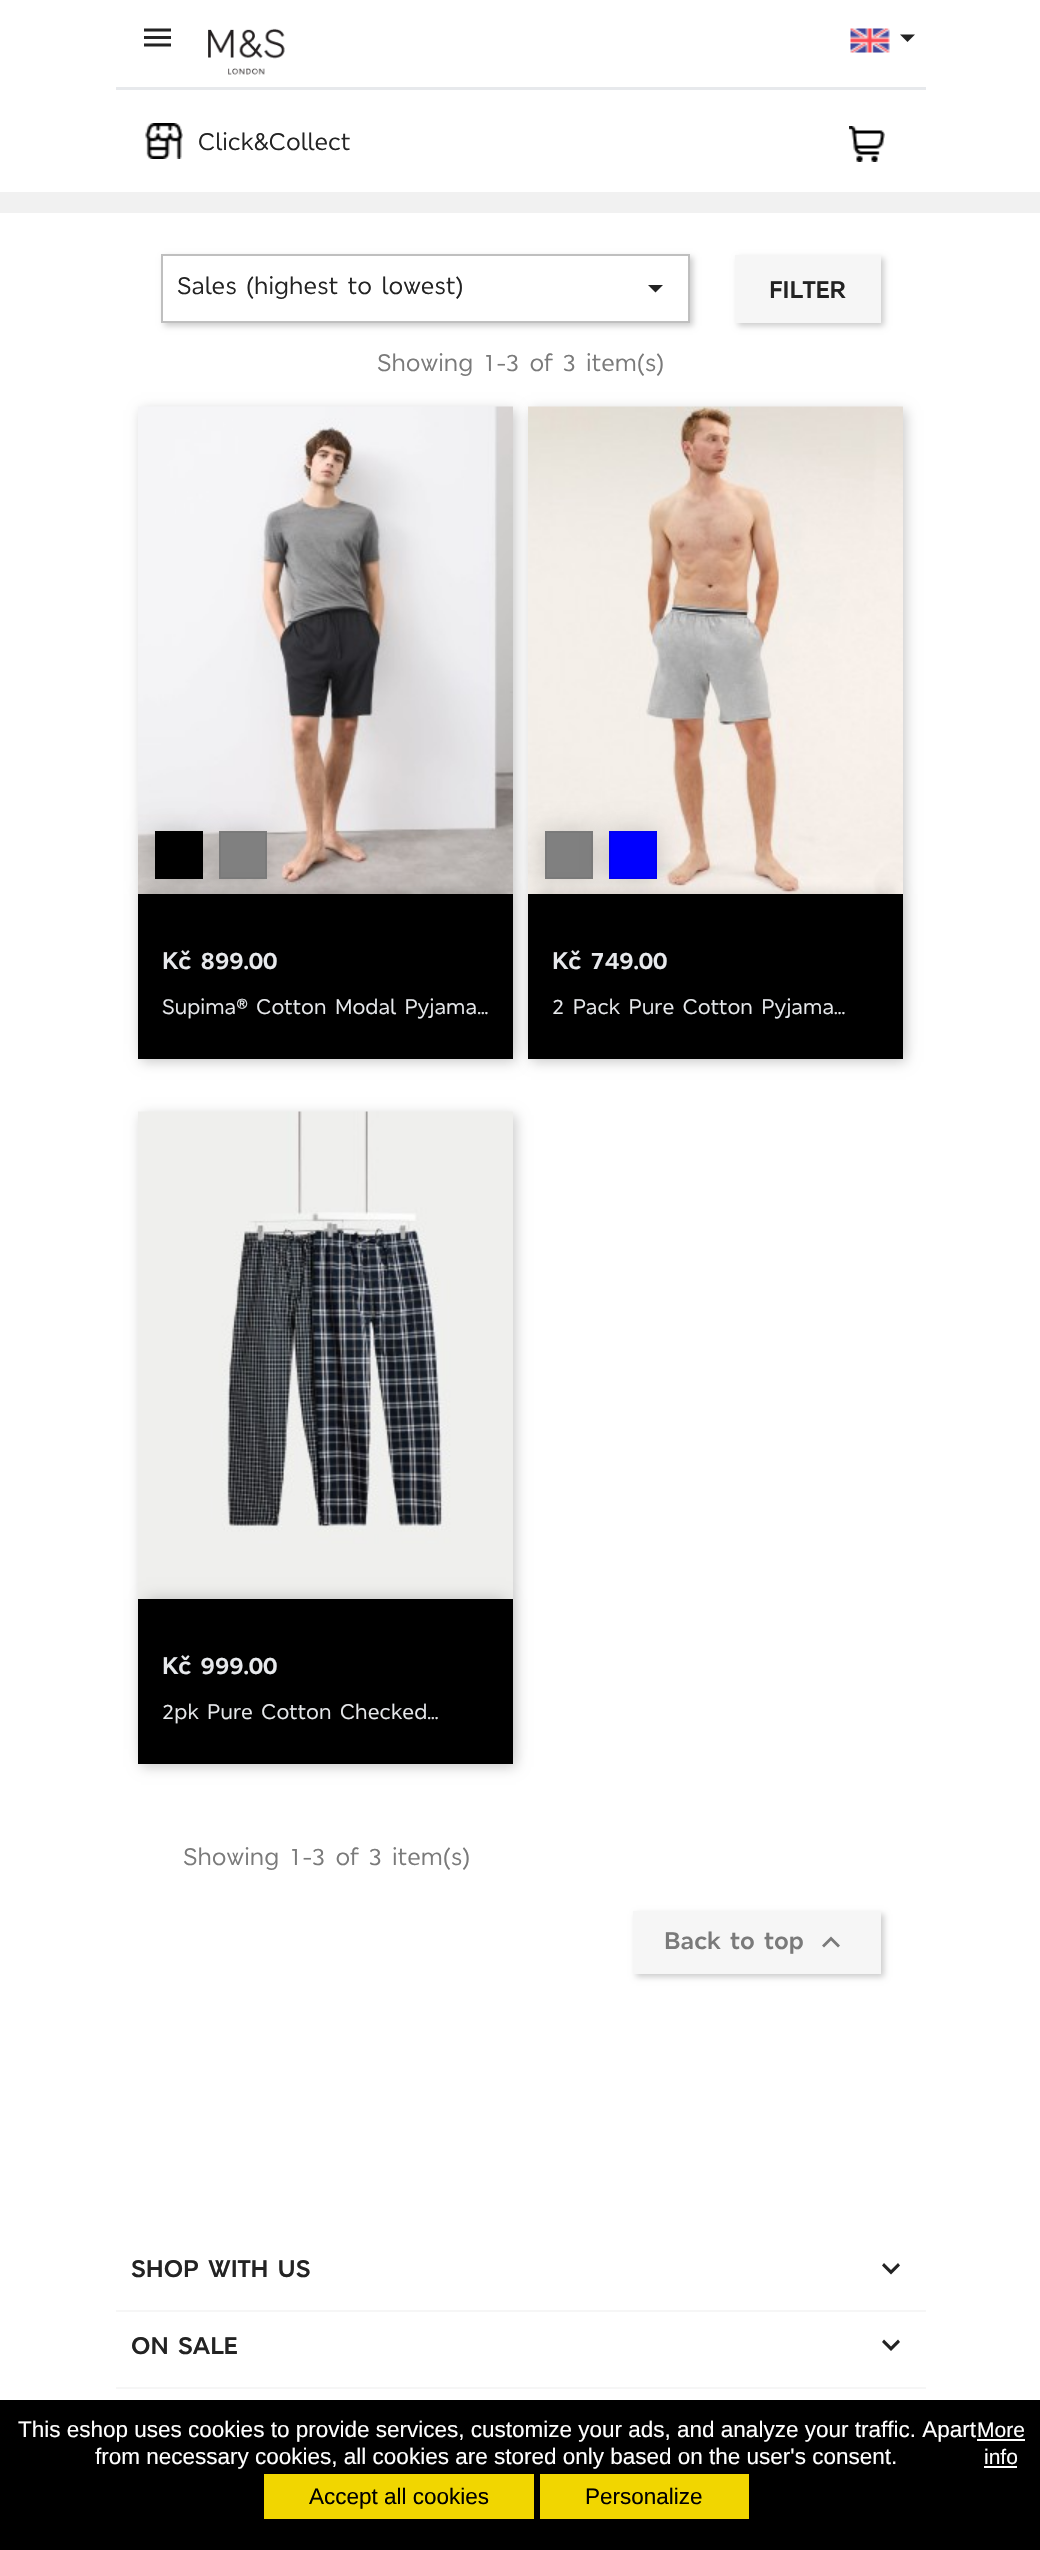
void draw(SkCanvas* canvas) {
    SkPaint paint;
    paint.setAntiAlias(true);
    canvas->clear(0xFFFFFFFF);
    paint.setColor(0xFFF1F1F1);
    canvas->drawRect(SkRect::MakeXYWH(0, 192, 1040, 21), paint);
    paint.setColor(0xFFE7E9EC);
    canvas->drawRect(SkRect::MakeXYWH(116, 87, 810, 3), paint);
    canvas->drawImageRect(SkImages::DeferredFromEncodedData(SkData::MakeFromFileName("img1.png")), SkRect::MakeXYWH(144, 28, 27, 19), SkSamplingOptions());
    canvas->drawImageRect(SkImages::DeferredFromEncodedData(SkData::MakeFromFileName("img2.png")), SkRect::MakeXYWH(208, 28, 77, 47), SkSamplingOptions());
    canvas->drawImageRect(SkImages::DeferredFromEncodedData(SkData::MakeFromFileName("img3.png")), SkRect::MakeXYWH(850, 28, 40, 25), SkSamplingOptions());
    paint.setColor(0xFF232323);
    canvas->drawPath(SkPathBuilder().moveTo(900, 34.5f).lineTo(915, 34.5f).lineTo(907.5f, 42).close().detach(), paint);
    canvas->drawImageRect(SkImages::DeferredFromEncodedData(SkData::MakeFromFileName("img4.png")), SkRect::MakeXYWH(145, 123, 38, 36), SkSamplingOptions());
    SkFont font1(fontMgr->matchFamilyStyle("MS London", SkFontStyle(600, SkFontStyle::kNormal_Width, SkFontStyle::kUpright_Slant)), 24);
    font1.setSubpixel(true);
    canvas->drawString("Click&Collect", 198, 150, font1, paint);
    canvas->drawImageRect(SkImages::DeferredFromEncodedData(SkData::MakeFromFileName("img5.png")), SkRect::MakeXYWH(849, 126, 36, 36), SkSamplingOptions());
    paint.setColor(0x33000000);
    paint.setMaskFilter(SkMaskFilter::MakeBlur(kNormal_SkBlurStyle, 3));
    canvas->drawRect(SkRect::MakeXYWH(164, 257, 529, 69), paint);
    paint.setMaskFilter(nullptr);
    paint.setColor(0xFFFFFFFF);
    canvas->drawRect(SkRect::MakeXYWH(162, 255, 527, 67), paint);
    paint.setStyle(SkPaint::kStroke_Style);
    paint.setStrokeWidth(2);
    paint.setColor(0xFFBFBFBF);
    canvas->drawRect(SkRect::MakeXYWH(162, 255, 527, 67), paint);
    paint.setStyle(SkPaint::kFill_Style);
    paint.setColor(0xFF232323);
    canvas->drawString("Sales (highest to lowest)", 177, 294, font1, paint);
    canvas->drawPath(SkPathBuilder().moveTo(648, 285).lineTo(663, 285).lineTo(655.5f, 292.5f).close().detach(), paint);
    paint.setColor(0x33000000);
    paint.setMaskFilter(SkMaskFilter::MakeBlur(kNormal_SkBlurStyle, 3));
    canvas->drawRect(SkRect::MakeXYWH(738, 258, 146, 68), paint);
    paint.setMaskFilter(nullptr);
    paint.setColor(0xFFF6F6F6);
    canvas->drawRect(SkRect::MakeXYWH(735, 255, 146, 68), paint);
    SkFont font2(fontMgr->matchFamilyStyle("MS London", SkFontStyle::Bold()), 24);
    font2.setSubpixel(true);
    paint.setColor(0xFF232323);
    canvas->drawString("FILTER", 769, 298, font2, paint);
    paint.setColor(0xFF7A7A7A);
    canvas->drawString("Showing 1-3 of 3 item(s)", 377, 371, font1, paint);
    paint.setColor(0x33000000);
    paint.setMaskFilter(SkMaskFilter::MakeBlur(kNormal_SkBlurStyle, 6));
    canvas->drawRect(SkRect::MakeXYWH(141, 410, 375, 652), paint);
    paint.setMaskFilter(nullptr);
    canvas->drawImageRect(SkImages::DeferredFromEncodedData(SkData::MakeFromFileName("img6.png")), SkRect::MakeXYWH(138, 406, 375, 488), SkSamplingOptions());
    paint.setColor(0x29000000);
    paint.setMaskFilter(SkMaskFilter::MakeBlur(kNormal_SkBlurStyle, 12));
    canvas->drawRect(SkRect::MakeXYWH(153, 830, 51, 51), paint);
    paint.setMaskFilter(nullptr);
    paint.setColor(0xFF000000);
    canvas->drawRect(SkRect::MakeXYWH(155, 831, 48, 48), paint);
    paint.setColor(0x29000000);
    paint.setMaskFilter(SkMaskFilter::MakeBlur(kNormal_SkBlurStyle, 12));
    canvas->drawRect(SkRect::MakeXYWH(218, 830, 51, 51), paint);
    paint.setMaskFilter(nullptr);
    paint.setColor(0xFF808080);
    canvas->drawRect(SkRect::MakeXYWH(220, 832, 46, 46), paint);
    paint.setStyle(SkPaint::kStroke_Style);
    paint.setColor(0xFF7A7A7A);
    canvas->drawRect(SkRect::MakeXYWH(220, 832, 46, 46), paint);
    paint.setStyle(SkPaint::kFill_Style);
    paint.setColor(0x33000000);
    paint.setMaskFilter(SkMaskFilter::MakeBlur(kNormal_SkBlurStyle, 6));
    canvas->drawRect(SkRect::MakeXYWH(531, 410, 375, 652), paint);
    paint.setMaskFilter(nullptr);
    canvas->drawImageRect(SkImages::DeferredFromEncodedData(SkData::MakeFromFileName("img7.png")), SkRect::MakeXYWH(528, 406, 375, 488), SkSamplingOptions());
    paint.setMaskFilter(SkMaskFilter::MakeBlur(kNormal_SkBlurStyle, 7.5f));
    canvas->drawRect(SkRect::MakeXYWH(146, 894, 360, 150), paint);
    paint.setMaskFilter(nullptr);
    paint.setColor(0x29000000);
    paint.setMaskFilter(SkMaskFilter::MakeBlur(kNormal_SkBlurStyle, 12));
    canvas->drawRect(SkRect::MakeXYWH(543, 830, 51, 51), paint);
    paint.setMaskFilter(nullptr);
    paint.setColor(0xFF000000);
    canvas->drawRect(SkRect::MakeXYWH(138, 894, 375, 165), paint);
    paint.setColor(0xFFE7E9EC);
    canvas->drawString("Kč 899.00", 162, 969, font2, paint);
    SkFont font3(fontMgr->matchFamilyStyle("MS London", SkFontStyle(600, SkFontStyle::kNormal_Width, SkFontStyle::kUpright_Slant)), 21);
    font3.setSubpixel(true);
    canvas->drawString("Supima® Cotton Modal Pyjama...", 162, 1014, font3, paint);
    paint.setColor(0xFF808080);
    canvas->drawRect(SkRect::MakeXYWH(546, 832, 46, 46), paint);
    paint.setStyle(SkPaint::kStroke_Style);
    paint.setColor(0xFF7A7A7A);
    canvas->drawRect(SkRect::MakeXYWH(546, 832, 46, 46), paint);
    paint.setStyle(SkPaint::kFill_Style);
    paint.setColor(0x29000000);
    paint.setMaskFilter(SkMaskFilter::MakeBlur(kNormal_SkBlurStyle, 12));
    canvas->drawRect(SkRect::MakeXYWH(608, 830, 51, 51), paint);
    paint.setMaskFilter(nullptr);
    paint.setColor(0xFF0000FF);
    canvas->drawRect(SkRect::MakeXYWH(610, 832, 46, 46), paint);
    paint.setStyle(SkPaint::kStroke_Style);
    paint.setColor(0xFF0000F2);
    canvas->drawRect(SkRect::MakeXYWH(610, 832, 46, 46), paint);
    paint.setStyle(SkPaint::kFill_Style);
    paint.setColor(0x33000000);
    paint.setMaskFilter(SkMaskFilter::MakeBlur(kNormal_SkBlurStyle, 7.5f));
    canvas->drawRect(SkRect::MakeXYWH(536, 894, 360, 150), paint);
    paint.setMaskFilter(nullptr);
    paint.setColor(0xFF000000);
    canvas->drawRect(SkRect::MakeXYWH(528, 894, 375, 165), paint);
    paint.setColor(0xFFE7E9EC);
    canvas->drawString("Kč 749.00", 552, 969, font2, paint);
    canvas->drawString("2 Pack Pure Cotton Pyjama...", 552, 1014, font3, paint);
    paint.setColor(0x33000000);
    paint.setMaskFilter(SkMaskFilter::MakeBlur(kNormal_SkBlurStyle, 6));
    canvas->drawRect(SkRect::MakeXYWH(141, 1115, 375, 652), paint);
    paint.setMaskFilter(nullptr);
    canvas->drawImageRect(SkImages::DeferredFromEncodedData(SkData::MakeFromFileName("img8.png")), SkRect::MakeXYWH(138, 1111, 375, 488), SkSamplingOptions());
    paint.setMaskFilter(SkMaskFilter::MakeBlur(kNormal_SkBlurStyle, 7.5f));
    canvas->drawRect(SkRect::MakeXYWH(146, 1599, 360, 150), paint);
    paint.setMaskFilter(nullptr);
    paint.setColor(0xFF000000);
    canvas->drawRect(SkRect::MakeXYWH(138, 1599, 375, 165), paint);
    paint.setColor(0xFFE7E9EC);
    canvas->drawString("Kč 999.00", 162, 1674, font2, paint);
    canvas->drawString("2pk Pure Cotton Checked...", 162, 1719, font3, paint);
    paint.setColor(0xFF7A7A7A);
    canvas->drawString("Showing 1-3 of 3 item(s)", 183, 1865, font1, paint);
    paint.setColor(0x33000000);
    paint.setMaskFilter(SkMaskFilter::MakeBlur(kNormal_SkBlurStyle, 3));
    canvas->drawRect(SkRect::MakeXYWH(636, 1914, 248, 63), paint);
    paint.setMaskFilter(nullptr);
    paint.setColor(0xFFF6F6F6);
    canvas->drawRect(SkRect::MakeXYWH(633, 1911, 248, 63), paint);
    paint.setColor(0xFF7A7A7A);
    canvas->drawString("Back to top", 664, 1949, font2, paint);
    canvas->drawPath(SkPathBuilder().moveTo(824, 1947.5f).lineTo(822, 1945.5f).lineTo(831, 1936.5f).lineTo(840, 1945.5f).lineTo(838, 1947.5f).lineTo(831, 1940.5f).close().detach(), paint);
    paint.setColor(0xFFF6F6F6);
    canvas->drawRect(SkRect::MakeXYWH(116, 2310, 810, 2), paint);
    paint.setColor(0xFF232323);
    canvas->drawString("SHOP WITH US", 131, 2277, font2, paint);
    canvas->drawPath(SkPathBuilder().moveTo(884, 2263).lineTo(891, 2270).lineTo(898, 2263).lineTo(900, 2265.5f).lineTo(891, 2274.5f).lineTo(882, 2265.5f).close().detach(), paint);
    paint.setColor(0xFFF6F6F6);
    canvas->drawRect(SkRect::MakeXYWH(116, 2387, 810, 2), paint);
    paint.setColor(0xFF232323);
    canvas->drawString("ON SALE", 131, 2354, font2, paint);
    canvas->drawPath(SkPathBuilder().moveTo(884, 2339.5f).lineTo(891, 2346.5f).lineTo(898, 2339.5f).lineTo(900, 2342).lineTo(891, 2351).lineTo(882, 2342).close().detach(), paint);
    paint.setColor(0xFF000000);
    canvas->drawRect(SkRect::MakeXYWH(0, 2400, 1040, 150), paint);
    SkFont font4(fontMgr->matchFamilyStyle("Liberation Sans", SkFontStyle::Normal()), 22.5f);
    font4.setSubpixel(true);
    paint.setColor(0xFFFFFFFF);
    canvas->drawString("This eshop uses cookies to provide services, customize your ads, and analyze your traffic. Apart", 18, 2437, font4, paint);
    canvas->drawString("from necessary cookies, all cookies are stored only based on the user's consent.", 95, 2464, font4, paint);
    SkFont font5(fontMgr->matchFamilyStyle("Liberation Sans", SkFontStyle::Normal()), 21);
    font5.setSubpixel(true);
    canvas->drawString("More", 977, 2437, font5, paint);
    canvas->drawRect(SkRect::MakeXYWH(977, 2439, 48, 2), paint);
    canvas->drawString("info", 984, 2464, font5, paint);
    canvas->drawRect(SkRect::MakeXYWH(984, 2466, 33, 2), paint);
    paint.setColor(0xFFF1D600);
    canvas->drawRect(SkRect::MakeXYWH(264, 2474, 270, 45), paint);
    paint.setColor(0xFF000000);
    canvas->drawString("Accept all cookies", 309, 2504, font4, paint);
    paint.setColor(0xFFF1D600);
    canvas->drawRect(SkRect::MakeXYWH(540, 2474, 209, 45), paint);
    paint.setColor(0xFF000000);
    canvas->drawString("Personalize", 585, 2504, font4, paint);
}
